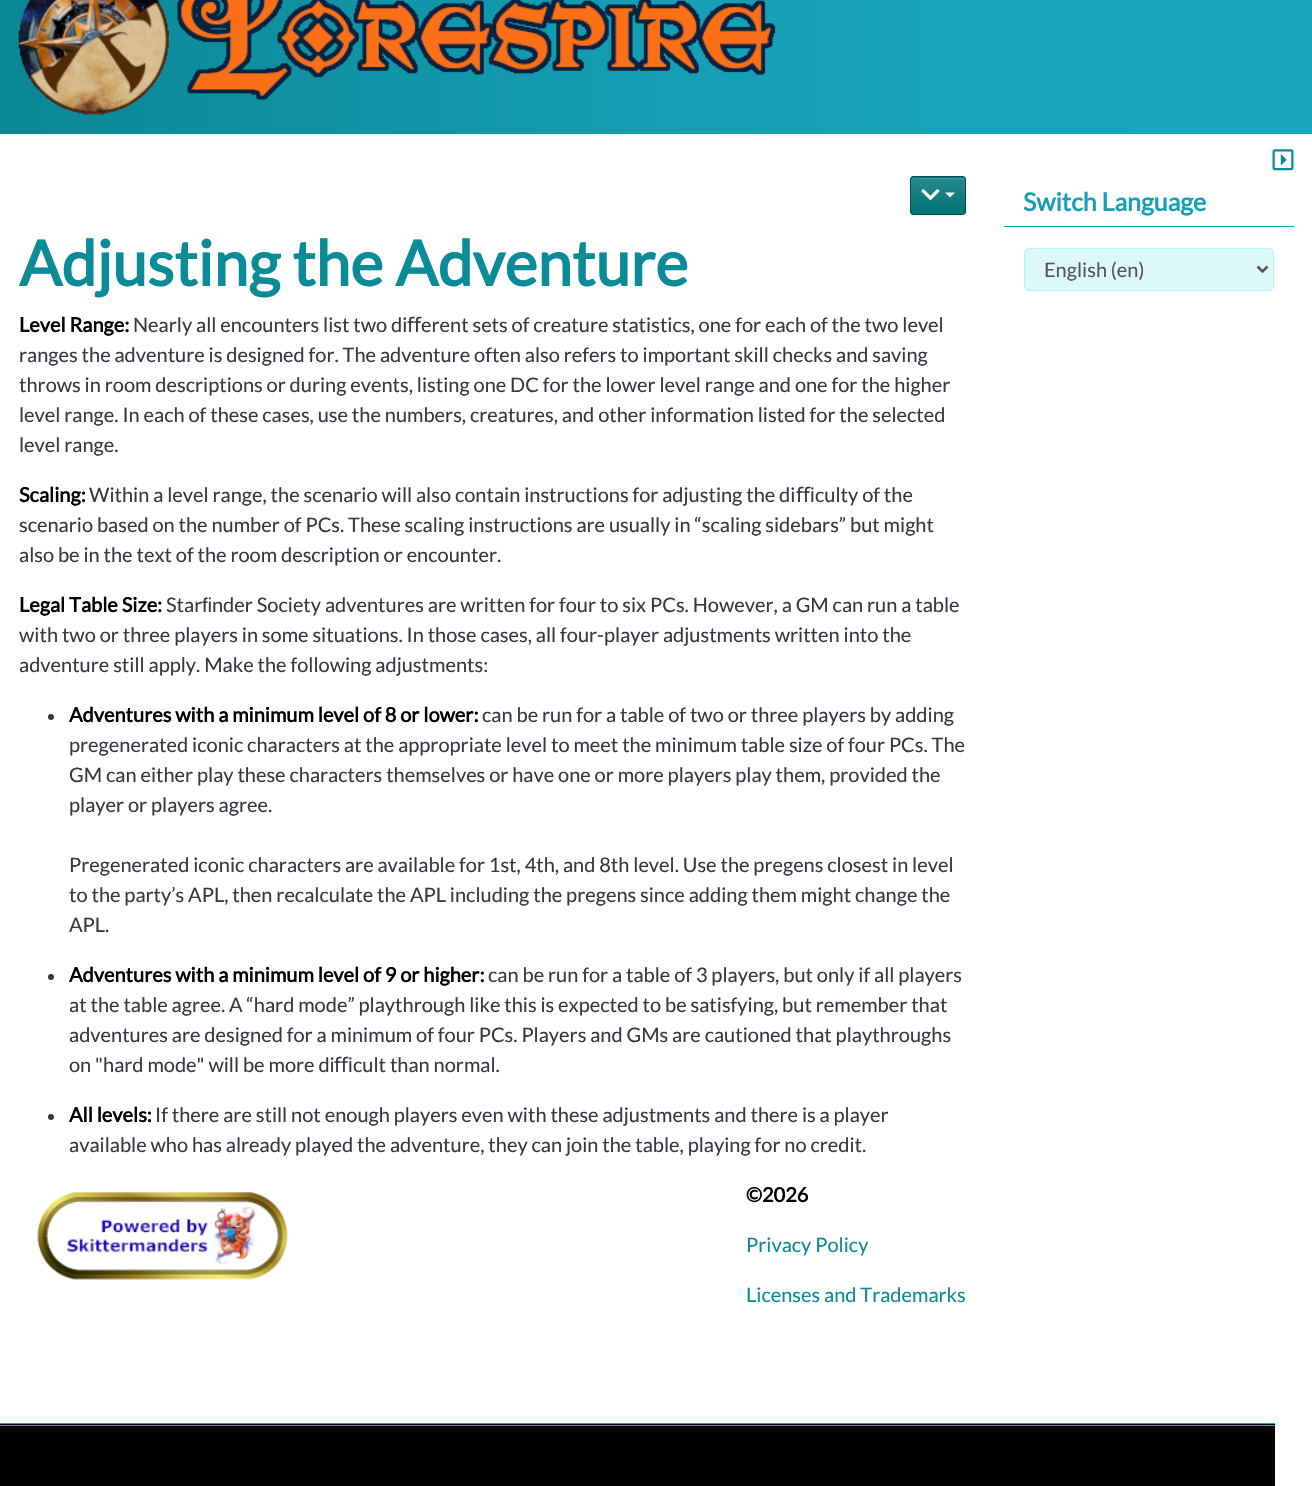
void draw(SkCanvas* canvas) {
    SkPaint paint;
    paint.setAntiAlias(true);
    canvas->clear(0xFFFFFFFF);
    {
        const SkColor colors[] = {0xFF0A8794, 0xFF169FB6, 0xFF18A4BC, 0xFF19A5BD};
        const float stops[] = {0, 0.53f, 0.72f, 1};
        const SkPoint ends[] = {{0, 43}, {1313, 43}};
        paint.setShader(SkGradientShader::MakeLinear(ends, colors, stops, 4, SkTileMode::kClamp));
        paint.setAlpha(255);
    }
    canvas->drawRect(SkRect::MakeXYWH(0, 0, 1312, 134), paint);
    canvas->drawImageRect(SkImages::DeferredFromEncodedData(SkData::MakeFromFileName("img1.png")), SkRect::MakeXYWH(18, 0, 758, 115), SkSamplingOptions());
    canvas->drawImageRect(SkImages::DeferredFromEncodedData(SkData::MakeFromFileName("img2.png")), SkRect::MakeXYWH(1272, 149, 22, 22), SkSamplingOptions());
    paint.setShader(nullptr);
    paint.setColor(0x12000000);
    paint.setMaskFilter(SkMaskFilter::MakeBlur(kNormal_SkBlurStyle, 0.5f));
    canvas->drawRoundRect(SkRect::MakeXYWH(910, 178, 56, 38), 4, 4, paint);
    paint.setMaskFilter(nullptr);
    paint.setColor(0xFF007378);
    canvas->drawRoundRect(SkRect::MakeXYWH(910, 176, 56, 39), 4, 4, paint);
    canvas->save();
    canvas->clipPath(SkPathBuilder().moveTo(914, 176).lineTo(962, 176).cubicTo(964, 176, 966, 178, 966, 180).lineTo(966, 211).cubicTo(966, 213, 964, 215, 962, 215).lineTo(914, 215).cubicTo(912, 215, 910, 213, 910, 211).lineTo(910, 180).cubicTo(910, 178, 912, 176, 914, 176).close().detach(), true);
    {
        const SkColor colors[] = {0xFF26888C, 0xFF007378};
        const float stops[] = {0, 1};
        const SkPoint ends[] = {{938, 178}, {938, 214}};
        paint.setShader(SkGradientShader::MakeLinear(ends, colors, stops, 2, SkTileMode::kClamp));
        paint.setAlpha(255);
    }
    canvas->drawRect(SkRect::MakeXYWH(910, 178, 56, 36), paint);
    canvas->restore();
    paint.setShader(nullptr);
    paint.setColor(0xFF469A9D);
    canvas->drawPath(SkPathBuilder().moveTo(914, 179).lineTo(962, 179).cubicTo(964, 179, 965, 180, 965, 182).cubicTo(965, 176, 960, 178, 954, 178).lineTo(922, 178).cubicTo(916, 178, 911, 176, 911, 182).cubicTo(911, 180, 912, 179, 914, 179).close().detach(), paint);
    paint.setStyle(SkPaint::kStroke_Style);
    paint.setStrokeWidth(1);
    paint.setColor(0xFF004E52);
    canvas->drawRoundRect(SkRect::MakeXYWH(910.5f, 176.5f, 55, 38), 3.5f, 3.5f, paint);
    canvas->drawImageRect(SkImages::DeferredFromEncodedData(SkData::MakeFromFileName("img3.png")), SkRect::MakeXYWH(921, 189, 19, 12), SkSamplingOptions());
    paint.setStyle(SkPaint::kFill_Style);
    paint.setColor(0xFFFFFFFF);
    canvas->drawPath(SkPathBuilder().moveTo(945, 192.5f).lineTo(955, 192.5f).lineTo(950, 197.5f).close().detach(), paint);
    SkFont font1(fontMgr->matchFamilyStyle("Lato", SkFontStyle::Bold()), 62.5f);
    font1.setSubpixel(true);
    paint.setColor(0xFF0B8A98);
    canvas->drawString("Adjusting the Adventure", 19, 286, font1, paint);
    SkFont font2(fontMgr->matchFamilyStyle("Lato", SkFontStyle::Bold()), 20);
    font2.setSubpixel(true);
    paint.setColor(0xFF000000);
    canvas->drawString("Level Range:", 19, 332, font2, paint);
    SkFont font3(fontMgr->matchFamilyStyle("Lato", SkFontStyle::Normal()), 20);
    font3.setSubpixel(true);
    paint.setColor(0xFF343A40);
    canvas->drawString("Nearly all encounters list two di", 133, 332, font3, paint);
    SkFont font4(fontMgr->matchFamilyStyle("Noto Sans", SkFontStyle::Normal()), 20);
    font4.setSubpixel(true);
    canvas->drawString("ﬀ", 407, 332, font4, paint);
    canvas->drawString("erent sets of creature statistics, one for each of the two level", 421, 332, font3, paint);
    canvas->drawString("ranges the adventure is designed for. The adventure often also refers to important skill checks and saving", 19, 362, font3, paint);
    canvas->drawString("throws in room descriptions or during events, listing one DC for the lower level range and one for the higher", 19, 392, font3, paint);
    canvas->drawString("level range. In each of these cases, use the numbers, creatures, and other information listed for the selected", 19, 422, font3, paint);
    canvas->drawString("level range.", 19, 452, font3, paint);
    paint.setColor(0xFF000000);
    canvas->drawString("Scaling:", 19, 502, font2, paint);
    paint.setColor(0xFF343A40);
    canvas->drawString("Within a level range, the scenario will also contain instructions for adjusting the di", 89, 502, font3, paint);
    canvas->drawString("ﬃ", 796, 502, font4, paint);
    canvas->drawString("culty of the", 815, 502, font3, paint);
    canvas->drawString("scenario based on the number of PCs. These scaling instructions are usually in “scaling sidebars” but might", 19, 532, font3, paint);
    canvas->drawString("also be in the text of the room description or encounter.", 19, 562, font3, paint);
    paint.setColor(0xFF000000);
    canvas->drawString("Legal Table Size:", 19, 612, font2, paint);
    paint.setColor(0xFF343A40);
    canvas->drawString("Star", 166, 612, font3, paint);
    SkFont font5(fontMgr->matchFamilyStyle("Liberation Sans", SkFontStyle::Normal()), 20);
    font5.setSubpixel(true);
    canvas->drawString("ﬁ", 202, 612, font5, paint);
    canvas->drawString("nder Society adventures are written for four to six PCs. However, a GM can run a table", 212, 612, font3, paint);
    canvas->drawString("with two or three players in some situations. In those cases, all four-player adjustments written into the", 19, 642, font3, paint);
    canvas->drawString("adventure still apply. Make the following adjustments:", 19, 672, font3, paint);
    canvas->drawCircle(51, 717, 3, paint);
    paint.setColor(0xFF000000);
    canvas->drawString("Adventures with a minimum level of 8 or lower:", 69, 722, font2, paint);
    paint.setColor(0xFF343A40);
    canvas->drawString("can be run for a table of two or three players by adding", 482, 722, font3, paint);
    canvas->drawString("pregenerated iconic characters at the appropriate level to meet the minimum table size of four PCs. The", 69, 752, font3, paint);
    canvas->drawString("GM can either play these characters themselves or have one or more players play them, provided the", 69, 782, font3, paint);
    canvas->drawString("player or players agree.", 69, 812, font3, paint);
    canvas->drawString("Pregenerated iconic characters are available for 1st, 4th, and 8th level. Use the pregens closest in level", 69, 872, font3, paint);
    canvas->drawString("to the party’s APL, then recalculate the APL including the pregens since adding them might change the", 69, 902, font3, paint);
    canvas->drawString("APL.", 69, 932, font3, paint);
    canvas->drawCircle(51, 977, 3, paint);
    paint.setColor(0xFF000000);
    canvas->drawString("Adventures with a minimum level of 9 or higher:", 69, 982, font2, paint);
    paint.setColor(0xFF343A40);
    canvas->drawString("can be run for a table of 3 players, but only if all players", 488, 982, font3, paint);
    canvas->drawString("at the table agree. A “hard mode” playthrough like this is expected to be satisfying, but remember that", 69, 1012, font3, paint);
    canvas->drawString("adventures are designed for a minimum of four PCs. Players and GMs are cautioned that playthroughs", 69, 1042, font3, paint);
    canvas->drawString("on \"hard mode\" will be more di", 69, 1072, font3, paint);
    canvas->drawString("ﬃ", 334, 1072, font4, paint);
    canvas->drawString("cult than normal.", 353, 1072, font3, paint);
    canvas->drawCircle(51, 1117, 3, paint);
    paint.setColor(0xFF000000);
    canvas->drawString("All levels:", 69, 1122, font2, paint);
    paint.setColor(0xFF343A40);
    canvas->drawString("If there are still not enough players even with these adjustments and there is a player", 155, 1122, font3, paint);
    canvas->drawString("available who has already played the adventure, they can join the table, playing for no credit.", 69, 1152, font3, paint);
    canvas->drawImageRect(SkImages::DeferredFromEncodedData(SkData::MakeFromFileName("img4.png")), SkRect::MakeXYWH(37, 1192, 251, 88), SkSamplingOptions());
    paint.setColor(0xFF000000);
    canvas->drawString("©2026", 746, 1202, font2, paint);
    paint.setColor(0xFF0B8A98);
    canvas->drawString("Privacy Policy", 746, 1252, font3, paint);
    canvas->drawString("Licenses and Trademarks", 746, 1302, font3, paint);
    paint.setColor(0xFF169FB6);
    canvas->drawRect(SkRect::MakeXYWH(1004, 226, 290, 1), paint);
    SkFont font6(fontMgr->matchFamilyStyle("Lato", SkFontStyle::Bold()), 25);
    font6.setSubpixel(true);
    canvas->drawString("Switch Language", 1023, 211, font6, paint);
    paint.setColor(0xFFDDF8F9);
    canvas->drawRoundRect(SkRect::MakeXYWH(1024.5f, 248.5f, 249, 42), 4.5f, 4.5f, paint);
    paint.setStyle(SkPaint::kStroke_Style);
    paint.setColor(0xFFB4F3FB);
    canvas->drawRoundRect(SkRect::MakeXYWH(1024.5f, 248.5f, 249, 42), 4.5f, 4.5f, paint);
    paint.setStrokeWidth(2.5f);
    paint.setColor(0xFF555555);
    canvas->drawPath(SkPathBuilder().moveTo(1257.5f, 266.5f).lineTo(1262.5f, 271.5f).lineTo(1267.5f, 266.5f).detach(), paint);
    paint.setStyle(SkPaint::kFill_Style);
    canvas->drawString("English (en)", 1044, 277, font3, paint);
    paint.setColor(0xFF000000);
    canvas->drawRect(SkRect::MakeXYWH(0, 1424, 1275, 62), paint);
    paint.setColor(0xFF19A5BE);
    canvas->drawRect(SkRect::MakeXYWH(0, 1423, 1275, 1), paint);
    canvas->drawRect(SkRect::MakeXYWH(0, 1425, 1275, 1), paint);
}
